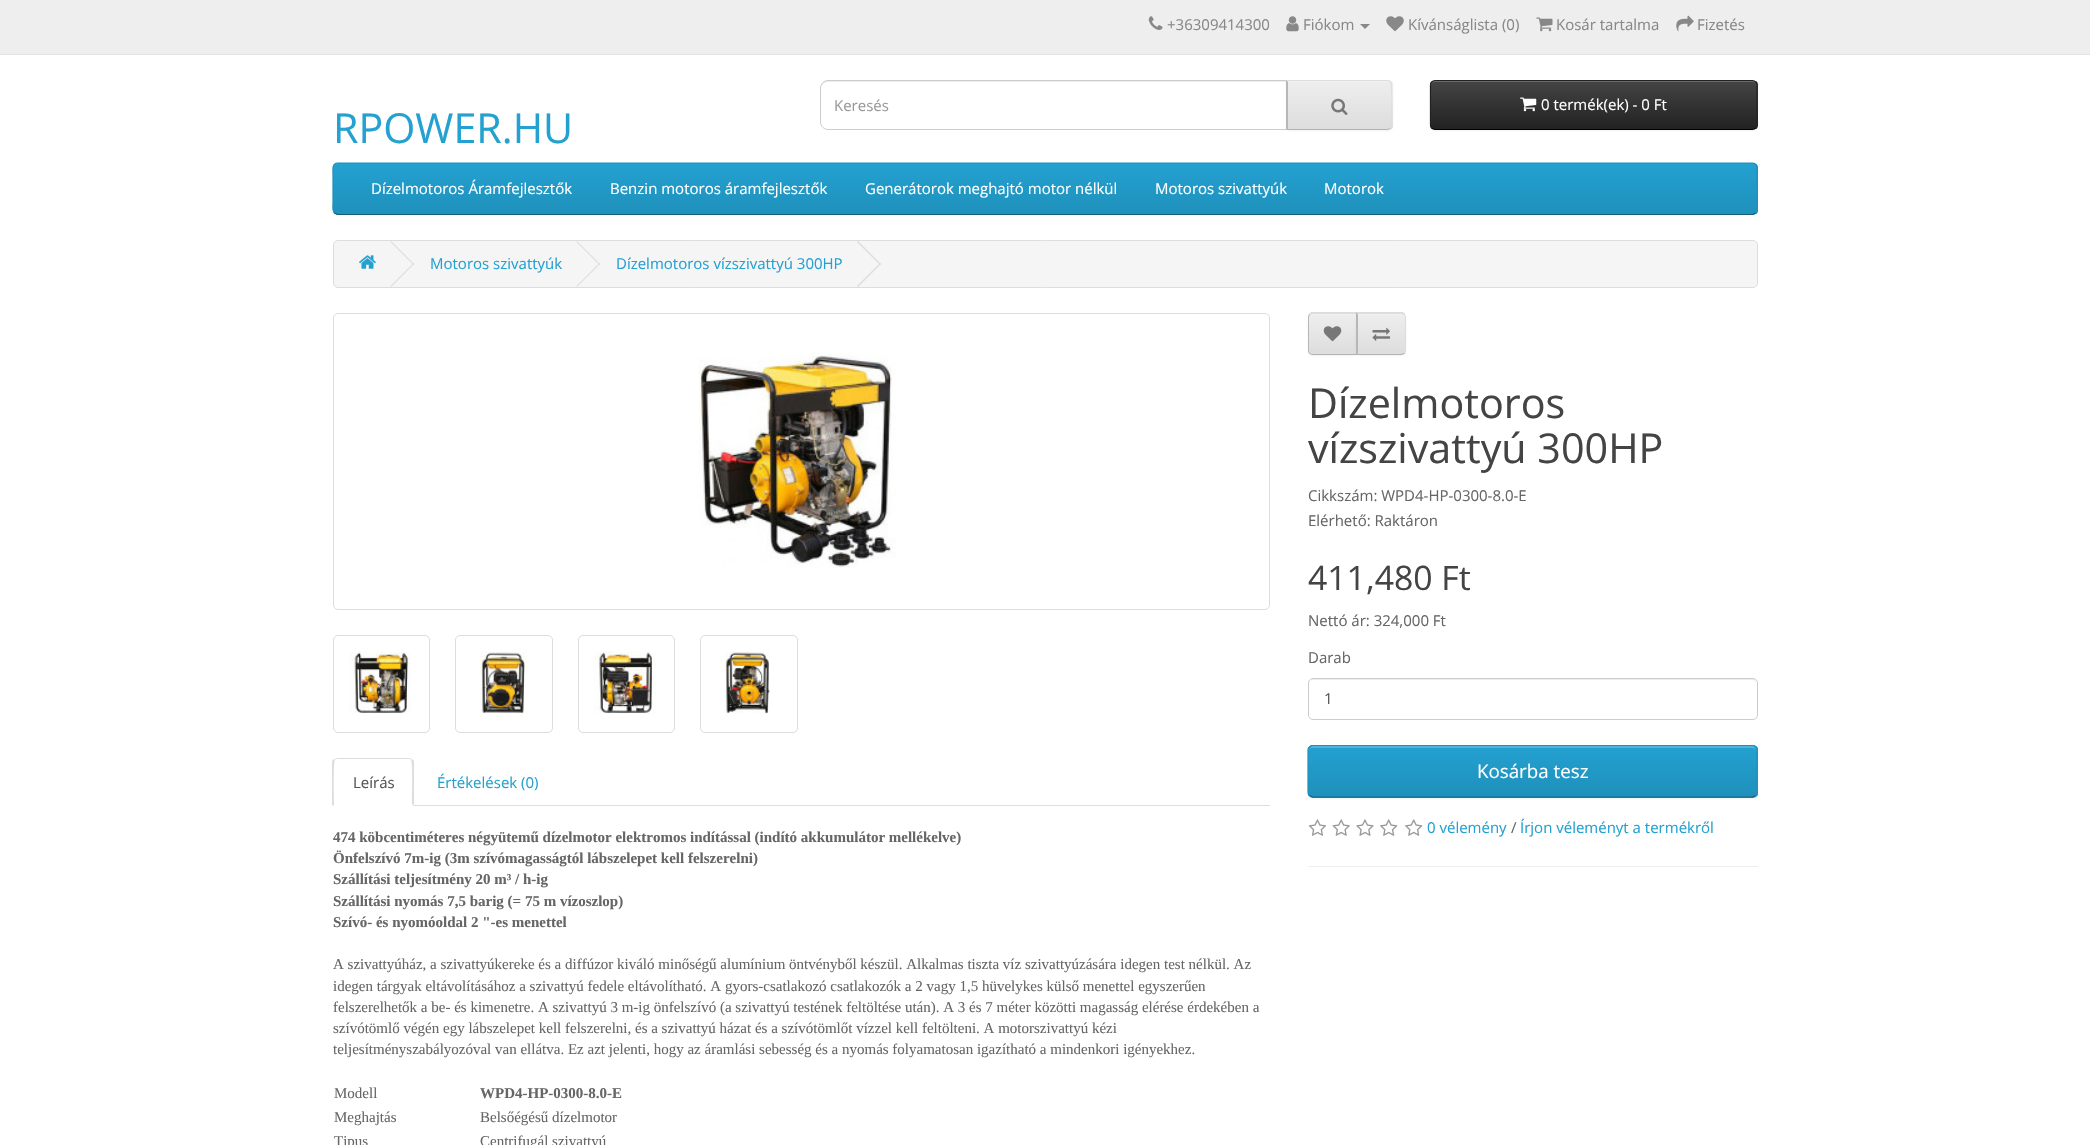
void draw(SkCanvas* canvas) {
    SkPaint paint;
    paint.setAntiAlias(true);
    canvas->clear(0xFFFFFFFF);
    paint.setColor(0xFFEEEEEE);
    canvas->drawRect(SkRect::MakeXYWH(0, 0, 2090, 54), paint);
    paint.setColor(0xFFE2E2E2);
    canvas->drawRect(SkRect::MakeXYWH(0, 54, 2090, 1), paint);
    canvas->drawImageRect(SkImages::DeferredFromEncodedData(SkData::MakeFromFileName("img1.png")), SkRect::MakeXYWH(1148, 16, 15, 14), SkSamplingOptions());
    SkFont font1(fontMgr->matchFamilyStyle("Open Sans", SkFontStyle::Normal()), 15);
    font1.setSubpixel(true);
    paint.setColor(0xFF888888);
    canvas->drawString("+36309414300", 1167, 30, font1, paint);
    canvas->drawImageRect(SkImages::DeferredFromEncodedData(SkData::MakeFromFileName("img2.png")), SkRect::MakeXYWH(1286, 16, 13, 16), SkSamplingOptions());
    canvas->drawString("Fiókom", 1303, 30, font1, paint);
    canvas->drawPath(SkPathBuilder().moveTo(1360, 24).lineTo(1370, 24).lineTo(1365, 29).close().detach(), paint);
    canvas->drawImageRect(SkImages::DeferredFromEncodedData(SkData::MakeFromFileName("img3.png")), SkRect::MakeXYWH(1386, 16, 18, 16), SkSamplingOptions());
    canvas->drawString("Kívánságlista (0)", 1408, 30, font1, paint);
    canvas->drawImageRect(SkImages::DeferredFromEncodedData(SkData::MakeFromFileName("img4.png")), SkRect::MakeXYWH(1536, 17, 17, 15), SkSamplingOptions());
    canvas->drawString("Kosár tartalma", 1556, 30, font1, paint);
    canvas->drawImageRect(SkImages::DeferredFromEncodedData(SkData::MakeFromFileName("img5.png")), SkRect::MakeXYWH(1676, 15, 18, 17), SkSamplingOptions());
    canvas->drawString("Fizetés", 1697, 30, font1, paint);
    paint.setColor(0xFFECECEC);
    canvas->drawPath(SkPathBuilder().moveTo(828, 82).lineTo(1286, 82).lineTo(1286, 81).lineTo(827, 81).cubicTo(822, 81, 821, 85, 821, 89).cubicTo(821, 85, 824, 82, 828, 82).close().detach(), paint);
    paint.setStyle(SkPaint::kStroke_Style);
    paint.setStrokeWidth(1);
    paint.setColor(0xFFCCCCCC);
    canvas->drawPath(SkPathBuilder().moveTo(828, 80.5f).lineTo(1287.5f, 80.5f).lineTo(1287.5f, 129.5f).lineTo(828, 129.5f).cubicTo(824, 129.5f, 820.5f, 126, 820.5f, 122).lineTo(820.5f, 88).cubicTo(820.5f, 84, 824, 80.5f, 828, 80.5f).close().detach(), paint);
    paint.setStyle(SkPaint::kFill_Style);
    paint.setColor(0xFF999999);
    canvas->drawString("Keresés", 834, 111, font1, paint);
    paint.setColor(0x0D000000);
    paint.setMaskFilter(SkMaskFilter::MakeBlur(kNormal_SkBlurStyle, 1));
    canvas->drawRoundRect(SkRect::MakeXYWH(1286, 81, 107, 50), 5, 5, paint);
    paint.setMaskFilter(nullptr);
    paint.setColor(0xFFE7E7E7);
    canvas->drawPath(SkPathBuilder().moveTo(1286, 80).lineTo(1388, 80).cubicTo(1391, 80, 1393, 82, 1393, 85).lineTo(1393, 125).cubicTo(1393, 128, 1391, 130, 1388, 130).lineTo(1286, 130).close().detach(), paint);
    canvas->save();
    canvas->clipPath(SkPathBuilder().moveTo(1286, 80).lineTo(1388, 80).cubicTo(1391, 80, 1393, 82, 1393, 85).lineTo(1393, 125).cubicTo(1393, 128, 1391, 130, 1388, 130).lineTo(1286, 130).close().detach(), true);
    {
        const SkColor colors[] = {0xFFEEEEEE, 0xFFDDDDDD};
        const float stops[] = {0, 1};
        const SkPoint ends[] = {{1339, 81}, {1339, 129}};
        paint.setShader(SkGradientShader::MakeLinear(ends, colors, stops, 2, SkTileMode::kClamp));
        paint.setAlpha(255);
    }
    canvas->drawRect(SkRect::MakeXYWH(1287, 81, 106, 48), paint);
    canvas->restore();
    paint.setShader(nullptr);
    paint.setColor(0xFFF1F1F1);
    canvas->drawPath(SkPathBuilder().moveTo(1288, 82).lineTo(1388, 82).cubicTo(1390, 82, 1391, 84, 1391, 86).lineTo(1391, 85).cubicTo(1391, 83, 1389, 81, 1387, 81).lineTo(1288, 81).close().detach(), paint);
    paint.setColor(0xFFDDDDDD);
    canvas->drawPath(SkPathBuilder().moveTo(1288, 81).lineTo(1388, 81).lineTo(1390, 82).lineTo(1391, 82).lineTo(1388, 80).lineTo(1286, 80).lineTo(1288, 82).close().detach(), paint);
    canvas->drawPath(SkPathBuilder().moveTo(1391, 82).cubicTo(1392, 82, 1392, 84, 1392, 85).lineTo(1392, 125).cubicTo(1392, 126, 1392, 128, 1391, 128).lineTo(1390, 128).cubicTo(1392, 126, 1392, 84, 1390, 82).close().detach(), paint);
    paint.setColor(0xFFB3B3B3);
    canvas->drawPath(SkPathBuilder().moveTo(1286, 130).lineTo(1388, 130).lineTo(1391, 128).lineTo(1390, 128).lineTo(1388, 129).lineTo(1288, 129).lineTo(1288, 128).close().detach(), paint);
    paint.setColor(0xFFB7B7B7);
    canvas->drawPath(SkPathBuilder().moveTo(1286, 130).lineTo(1288, 128).lineTo(1288, 82).lineTo(1286, 80).close().detach(), paint);
    canvas->drawImageRect(SkImages::DeferredFromEncodedData(SkData::MakeFromFileName("img6.png")), SkRect::MakeXYWH(1331, 98, 17, 17), SkSamplingOptions());
    paint.setColor(0x0D000000);
    paint.setMaskFilter(SkMaskFilter::MakeBlur(kNormal_SkBlurStyle, 1));
    canvas->drawRoundRect(SkRect::MakeXYWH(1430, 81, 328, 50), 5, 5, paint);
    paint.setMaskFilter(nullptr);
    canvas->save();
    canvas->clipPath(SkPathBuilder().moveTo(1435, 80).lineTo(1753, 80).cubicTo(1756, 80, 1758, 82, 1758, 85).lineTo(1758, 125).cubicTo(1758, 128, 1756, 130, 1753, 130).lineTo(1435, 130).cubicTo(1432, 130, 1430, 128, 1430, 125).lineTo(1430, 85).cubicTo(1430, 82, 1432, 80, 1435, 80).close().detach(), true);
    {
        const SkColor colors[] = {0xFF444444, 0xFF222222};
        const float stops[] = {0, 1};
        const SkPoint ends[] = {{1594, 81}, {1594, 129}};
        paint.setShader(SkGradientShader::MakeLinear(ends, colors, stops, 2, SkTileMode::kClamp));
        paint.setAlpha(255);
    }
    canvas->drawRect(SkRect::MakeXYWH(1430, 81, 328, 48), paint);
    canvas->restore();
    paint.setShader(nullptr);
    paint.setColor(0xFF696969);
    canvas->drawPath(SkPathBuilder().moveTo(1435, 82).lineTo(1752, 82).cubicTo(1755, 82, 1756, 84, 1756, 86).lineTo(1756, 85).cubicTo(1756, 83, 1754, 81, 1752, 81).lineTo(1435, 81).cubicTo(1433, 81, 1431, 83, 1431, 85).lineTo(1431, 86).cubicTo(1431, 84, 1433, 82, 1435, 82).close().detach(), paint);
    paint.setStyle(SkPaint::kStroke_Style);
    paint.setStrokeWidth(1.2f);
    paint.setColor(0xFF000000);
    canvas->drawPath(SkPathBuilder().moveTo(1755.5f, 128).cubicTo(1755, 129, 1753.5f, 129.5f, 1752.5f, 129.5f).lineTo(1435, 129.5f).cubicTo(1434, 129.5f, 1432.5f, 129, 1432, 128).detach(), paint);
    paint.setColor(0xFF222222);
    canvas->drawPath(SkPathBuilder().moveTo(1432, 128).cubicTo(1431, 127.5f, 1430.5f, 126, 1430.5f, 125).lineTo(1430.5f, 85).cubicTo(1430.5f, 84, 1431, 82.5f, 1432, 82).cubicTo(1432.5f, 81, 1434, 80.5f, 1435, 80.5f).lineTo(1752.5f, 80.5f).cubicTo(1753.5f, 80.5f, 1755, 81, 1755.5f, 82).cubicTo(1756.5f, 82.5f, 1757, 84, 1757, 85).lineTo(1757, 125).cubicTo(1757, 126, 1756.5f, 127.5f, 1755.5f, 128).detach(), paint);
    canvas->drawImageRect(SkImages::DeferredFromEncodedData(SkData::MakeFromFileName("img7.png")), SkRect::MakeXYWH(1520, 97, 17, 15), SkSamplingOptions());
    paint.setStyle(SkPaint::kFill_Style);
    paint.setColor(0xFFFFFFFF);
    canvas->drawString("0 termék(ek) - 0 Ft", 1541, 110, font1, paint);
    SkFont font2(fontMgr->matchFamilyStyle("Open Sans", SkFontStyle::Normal()), 41.25f);
    font2.setSubpixel(true);
    paint.setColor(0xFF23A1D1);
    canvas->drawString("RPOWER.HU", 333, 143, font2, paint);
    paint.setColor(0xFF229AC8);
    canvas->drawRoundRect(SkRect::MakeXYWH(333, 163, 1425, 52), 5, 5, paint);
    canvas->save();
    canvas->clipPath(SkPathBuilder().moveTo(338, 163).lineTo(1753, 163).cubicTo(1756, 163, 1758, 165, 1758, 168).lineTo(1758, 210).cubicTo(1758, 213, 1756, 215, 1753, 215).lineTo(338, 215).cubicTo(335, 215, 333, 213, 333, 210).lineTo(333, 168).cubicTo(333, 165, 335, 163, 338, 163).close().detach(), true);
    {
        const SkColor colors[] = {0xFF23A1D1, 0xFF1F90BB};
        const float stops[] = {0, 1};
        const SkPoint ends[] = {{1045, 164}, {1045, 214}};
        paint.setShader(SkGradientShader::MakeLinear(ends, colors, stops, 2, SkTileMode::kClamp));
        paint.setAlpha(255);
    }
    canvas->drawRect(SkRect::MakeXYWH(333, 164, 1425, 50), paint);
    canvas->restore();
    paint.setStyle(SkPaint::kStroke_Style);
    paint.setShader(nullptr);
    paint.setColor(0xFF145E7A);
    canvas->drawPath(SkPathBuilder().moveTo(1755.5f, 213).lineTo(1752.5f, 214.5f).lineTo(337.5f, 214.5f).lineTo(334.5f, 213).detach(), paint);
    paint.setColor(0xFF1F90BB);
    canvas->drawPath(SkPathBuilder().moveTo(334.5f, 213).cubicTo(332, 210.5f, 333, 205, 333, 203).lineTo(333, 174.5f).cubicTo(333, 171.5f, 331.5f, 163, 337.5f, 163).lineTo(1752.5f, 163).cubicTo(1758.5f, 163, 1757, 171.5f, 1757, 174.5f).lineTo(1757, 203).cubicTo(1757, 205, 1758, 210.5f, 1755.5f, 213).detach(), paint);
    paint.setStyle(SkPaint::kFill_Style);
    paint.setColor(0xFFFFFFFF);
    canvas->drawString("Dízelmotoros Áramfejlesztők", 371, 194, font1, paint);
    canvas->drawString("Benzin motoros áramfejlesztők", 610, 194, font1, paint);
    canvas->drawString("Generátorok meghajtó motor nélkül", 865, 194, font1, paint);
    canvas->drawString("Motoros szivattyúk", 1155, 194, font1, paint);
    canvas->drawString("Motorok", 1324, 194, font1, paint);
    paint.setColor(0xFFF5F5F5);
    canvas->drawRoundRect(SkRect::MakeXYWH(333.5f, 240.5f, 1424, 47), 4.5f, 4.5f, paint);
    paint.setStyle(SkPaint::kStroke_Style);
    paint.setStrokeWidth(1);
    paint.setColor(0xFFDDDDDD);
    canvas->drawRoundRect(SkRect::MakeXYWH(333.5f, 240.5f, 1424, 47), 4.5f, 4.5f, paint);
    canvas->drawImageRect(SkImages::DeferredFromEncodedData(SkData::MakeFromFileName("img8.png")), SkRect::MakeXYWH(359, 255, 17, 14), SkSamplingOptions());
    paint.setStyle(SkPaint::kFill_Style);
    canvas->drawPath(SkPathBuilder().moveTo(390.5f, 242).lineTo(391, 241).lineTo(414, 264).lineTo(413.5f, 265).close().detach(), paint);
    canvas->drawPath(SkPathBuilder().moveTo(390.5f, 286).lineTo(413.5f, 263).lineTo(414, 264).lineTo(391, 287).close().detach(), paint);
    paint.setColor(0xFF23A1D1);
    canvas->drawString("Motoros szivattyúk", 430, 269, font1, paint);
    paint.setColor(0xFFDDDDDD);
    canvas->drawPath(SkPathBuilder().moveTo(576.5f, 242).lineTo(577, 241).lineTo(600, 264).lineTo(599.5f, 265).close().detach(), paint);
    canvas->drawPath(SkPathBuilder().moveTo(576.5f, 286).lineTo(599.5f, 263).lineTo(600, 264).lineTo(577, 287).close().detach(), paint);
    paint.setColor(0xFF23A1D1);
    canvas->drawString("Dízelmotoros vízszivattyú 300HP", 616, 269, font1, paint);
    paint.setColor(0xFFDDDDDD);
    canvas->drawPath(SkPathBuilder().moveTo(857, 242).lineTo(858, 241).lineTo(881, 264).lineTo(880, 265).close().detach(), paint);
    canvas->drawPath(SkPathBuilder().moveTo(857, 286).lineTo(880, 263).lineTo(881, 264).lineTo(858, 287).close().detach(), paint);
    paint.setColor(0x0D000000);
    paint.setMaskFilter(SkMaskFilter::MakeBlur(kNormal_SkBlurStyle, 1));
    canvas->drawRoundRect(SkRect::MakeXYWH(1308, 314, 50, 42), 5, 5, paint);
    paint.setMaskFilter(nullptr);
    canvas->save();
    canvas->clipPath(SkPathBuilder().moveTo(1313, 313).lineTo(1358, 313).lineTo(1358, 355).lineTo(1313, 355).cubicTo(1310, 355, 1308, 353, 1308, 350).lineTo(1308, 318).cubicTo(1308, 315, 1310, 313, 1313, 313).close().detach(), true);
    {
        const SkColor colors[] = {0xFFEEEEEE, 0xFFDDDDDD};
        const float stops[] = {0, 1};
        const SkPoint ends[] = {{1333, 314}, {1333, 354}};
        paint.setShader(SkGradientShader::MakeLinear(ends, colors, stops, 2, SkTileMode::kClamp));
        paint.setAlpha(255);
    }
    canvas->drawRect(SkRect::MakeXYWH(1308, 314, 48, 40), paint);
    canvas->restore();
    paint.setShader(nullptr);
    paint.setColor(0xFFF1F1F1);
    canvas->drawPath(SkPathBuilder().moveTo(1312, 315).lineTo(1356, 315).lineTo(1356, 314).lineTo(1313, 314).cubicTo(1311, 314, 1309, 316, 1309, 318).lineTo(1309, 319).cubicTo(1309, 317, 1310, 315, 1312, 315).close().detach(), paint);
    paint.setColor(0xFFDDDDDD);
    canvas->drawPath(SkPathBuilder().moveTo(1312, 314).lineTo(1310, 315).lineTo(1309, 314).lineTo(1311, 312).lineTo(1358, 312).lineTo(1356, 314).close().detach(), paint);
    paint.setColor(0xFFB3B3B3);
    canvas->drawPath(SkPathBuilder().moveTo(1358, 355).lineTo(1356, 354).lineTo(1311, 354).lineTo(1310, 353).lineTo(1309, 353).cubicTo(1310, 354, 1311, 355, 1312, 355).close().detach(), paint);
    paint.setColor(0xFFB7B7B7);
    canvas->drawPath(SkPathBuilder().moveTo(1309, 353.5f).cubicTo(1308.5f, 352.5f, 1308, 351.5f, 1308, 350).lineTo(1308, 318).cubicTo(1308, 316.5f, 1308.5f, 315, 1309, 314).lineTo(1310, 315).cubicTo(1309.5f, 315.5f, 1309, 316.5f, 1309, 318).lineTo(1309, 350).cubicTo(1309, 351, 1309, 352, 1310, 353).close().detach(), paint);
    canvas->drawImageRect(SkImages::DeferredFromEncodedData(SkData::MakeFromFileName("img9.png")), SkRect::MakeXYWH(1323, 326, 19, 16), SkSamplingOptions());
    paint.setColor(0x0D000000);
    paint.setMaskFilter(SkMaskFilter::MakeBlur(kNormal_SkBlurStyle, 1));
    canvas->drawRoundRect(SkRect::MakeXYWH(1356, 314, 50, 42), 5, 5, paint);
    paint.setMaskFilter(nullptr);
    canvas->save();
    canvas->clipPath(SkPathBuilder().moveTo(1356, 313).lineTo(1401, 313).cubicTo(1404, 313, 1406, 315, 1406, 318).lineTo(1406, 350).cubicTo(1406, 353, 1404, 355, 1401, 355).lineTo(1356, 355).close().detach(), true);
    {
        const SkColor colors[] = {0xFFEEEEEE, 0xFFDDDDDD};
        const float stops[] = {0, 1};
        const SkPoint ends[] = {{1381, 314}, {1381, 354}};
        paint.setShader(SkGradientShader::MakeLinear(ends, colors, stops, 2, SkTileMode::kClamp));
        paint.setAlpha(255);
    }
    canvas->drawRect(SkRect::MakeXYWH(1357, 314, 49, 40), paint);
    canvas->restore();
    paint.setShader(nullptr);
    paint.setColor(0xFFF1F1F1);
    canvas->drawPath(SkPathBuilder().moveTo(1358, 315).lineTo(1401, 315).cubicTo(1403, 315, 1405, 317, 1405, 319).lineTo(1405, 318).cubicTo(1405, 316, 1403, 314, 1401, 314).lineTo(1358, 314).close().detach(), paint);
    paint.setColor(0xFFDDDDDD);
    canvas->drawPath(SkPathBuilder().moveTo(1358, 314).lineTo(1356, 312).lineTo(1403, 312).lineTo(1405, 314).lineTo(1404, 315).lineTo(1401, 314).close().detach(), paint);
    canvas->drawPath(SkPathBuilder().moveTo(1404.5f, 314).cubicTo(1405.5f, 315, 1406, 316.5f, 1406, 318).lineTo(1406, 350).cubicTo(1406, 351.5f, 1405.5f, 352.5f, 1404.5f, 353.5f).lineTo(1404, 352.5f).cubicTo(1404.5f, 352, 1405, 351, 1405, 350).lineTo(1405, 318).cubicTo(1405, 316.5f, 1404.5f, 315.5f, 1404, 315).close().detach(), paint);
    paint.setColor(0xFFB3B3B3);
    canvas->drawPath(SkPathBuilder().moveTo(1356, 355).lineTo(1401, 355).cubicTo(1403, 355, 1404, 354, 1405, 353).lineTo(1404, 353).cubicTo(1403, 353, 1402, 354, 1401, 354).lineTo(1358, 354).lineTo(1358, 353).close().detach(), paint);
    paint.setColor(0xFFB7B7B7);
    canvas->drawPath(SkPathBuilder().moveTo(1356, 355).lineTo(1358, 353).lineTo(1358, 314).lineTo(1356, 312).close().detach(), paint);
    canvas->drawImageRect(SkImages::DeferredFromEncodedData(SkData::MakeFromFileName("img10.png")), SkRect::MakeXYWH(1372, 327, 18, 14), SkSamplingOptions());
    paint.setColor(0xFF444444);
    canvas->drawString("Dízelmotoros", 1308, 418, font2, paint);
    canvas->drawString("vízszivattyú 300HP", 1308, 463, font2, paint);
    paint.setColor(0xFF666666);
    canvas->drawString("Cikkszám: WPD4-HP-0300-8.0-E", 1308, 501, font1, paint);
    canvas->drawString("Elérhető: Raktáron", 1308, 526, font1, paint);
    SkFont font3(fontMgr->matchFamilyStyle("Open Sans", SkFontStyle::Normal()), 33.75f);
    font3.setSubpixel(true);
    paint.setColor(0xFF444444);
    canvas->drawString("411,480 Ft", 1308, 590, font3, paint);
    paint.setColor(0xFF666666);
    canvas->drawString("Nettó ár: 324,000 Ft", 1308, 626, font1, paint);
    canvas->drawString("Darab", 1308, 663, font1, paint);
    paint.setColor(0xFFECECEC);
    canvas->drawPath(SkPathBuilder().moveTo(1312, 680).lineTo(1752, 680).cubicTo(1755, 680, 1756, 682, 1756, 684).cubicTo(1756, 681, 1755, 679, 1752, 679).lineTo(1313, 679).lineTo(1311, 680).lineTo(1310, 681).lineTo(1309, 684).cubicTo(1309, 682, 1310, 680, 1312, 680).close().detach(), paint);
    paint.setStyle(SkPaint::kStroke_Style);
    paint.setColor(0xFFCCCCCC);
    canvas->drawRoundRect(SkRect::MakeXYWH(1308.5f, 678.5f, 449, 41), 4.5f, 4.5f, paint);
    paint.setStyle(SkPaint::kFill_Style);
    paint.setColor(0xFF555555);
    canvas->drawString("1", 1324, 704, font1, paint);
    paint.setColor(0x0D000000);
    paint.setMaskFilter(SkMaskFilter::MakeBlur(kNormal_SkBlurStyle, 1));
    canvas->drawRoundRect(SkRect::MakeXYWH(1308, 746, 450, 53), 5, 5, paint);
    paint.setMaskFilter(nullptr);
    paint.setColor(0xFF229AC8);
    canvas->drawRoundRect(SkRect::MakeXYWH(1308, 745, 450, 53), 5, 5, paint);
    canvas->save();
    canvas->clipPath(SkPathBuilder().moveTo(1313, 745).lineTo(1753, 745).cubicTo(1756, 745, 1758, 747, 1758, 750).lineTo(1758, 793).cubicTo(1758, 796, 1756, 798, 1753, 798).lineTo(1313, 798).cubicTo(1310, 798, 1308, 796, 1308, 793).lineTo(1308, 750).cubicTo(1308, 747, 1310, 745, 1313, 745).close().detach(), true);
    {
        const SkColor colors[] = {0xFF23A1D1, 0xFF1F90BB};
        const float stops[] = {0, 1};
        const SkPoint ends[] = {{1533, 746}, {1533, 796}};
        paint.setShader(SkGradientShader::MakeLinear(ends, colors, stops, 2, SkTileMode::kClamp));
        paint.setAlpha(255);
    }
    canvas->drawRect(SkRect::MakeXYWH(1308, 746, 450, 50), paint);
    canvas->restore();
    paint.setShader(nullptr);
    paint.setColor(0xFF4FB3DA);
    canvas->drawPath(SkPathBuilder().moveTo(1312, 748).lineTo(1752, 748).cubicTo(1755, 748, 1756, 749, 1756, 751).cubicTo(1756, 748, 1755, 746, 1752, 746).lineTo(1313, 746).lineTo(1311, 747).lineTo(1310, 748).lineTo(1309, 751).cubicTo(1309, 749, 1310, 748, 1312, 748).close().detach(), paint);
    paint.setStyle(SkPaint::kStroke_Style);
    paint.setStrokeWidth(1.2f);
    paint.setColor(0xFF145E7A);
    canvas->drawPath(SkPathBuilder().moveTo(1755.5f, 795.5f).lineTo(1752.5f, 797).lineTo(1312.5f, 797).lineTo(1309.5f, 795.5f).detach(), paint);
    paint.setColor(0xFF1F90BB);
    canvas->drawPath(SkPathBuilder().moveTo(1309.5f, 795.5f).cubicTo(1308.5f, 795, 1308, 793.5f, 1308, 792.5f).lineTo(1308, 750).cubicTo(1308, 749, 1308.5f, 747.5f, 1309.5f, 747).cubicTo(1310, 746, 1311.5f, 745.5f, 1312.5f, 745.5f).lineTo(1752.5f, 745.5f).cubicTo(1753.5f, 745.5f, 1755, 746, 1755.5f, 747).cubicTo(1756.5f, 747.5f, 1757, 749, 1757, 750).lineTo(1757, 792.5f).cubicTo(1757, 793.5f, 1756.5f, 795, 1755.5f, 795.5f).detach(), paint);
    SkFont font4(fontMgr->matchFamilyStyle("Open Sans", SkFontStyle::Normal()), 18.75f);
    font4.setSubpixel(true);
    paint.setStyle(SkPaint::kFill_Style);
    paint.setColor(0xFFFFFFFF);
    canvas->drawString("Kosárba tesz", 1477, 778, font4, paint);
    canvas->drawImageRect(SkImages::DeferredFromEncodedData(SkData::MakeFromFileName("img11.png")), SkRect::MakeXYWH(1308, 819, 19, 17), SkSamplingOptions());
    canvas->drawImageRect(SkImages::DeferredFromEncodedData(SkData::MakeFromFileName("img12.png")), SkRect::MakeXYWH(1332, 819, 18, 17), SkSamplingOptions());
    canvas->drawImageRect(SkImages::DeferredFromEncodedData(SkData::MakeFromFileName("img13.png")), SkRect::MakeXYWH(1356, 819, 18, 17), SkSamplingOptions());
    canvas->drawImageRect(SkImages::DeferredFromEncodedData(SkData::MakeFromFileName("img14.png")), SkRect::MakeXYWH(1380, 819, 18, 17), SkSamplingOptions());
    canvas->drawImageRect(SkImages::DeferredFromEncodedData(SkData::MakeFromFileName("img14.png")), SkRect::MakeXYWH(1405, 819, 18, 17), SkSamplingOptions());
    paint.setColor(0xFF23A1D1);
    canvas->drawString("0 vélemény", 1427, 833, font1, paint);
    paint.setColor(0xFF666666);
    canvas->drawString("/", 1511, 833, font1, paint);
    paint.setColor(0xFF23A1D1);
    canvas->drawString("Írjon véleményt a termékről", 1520, 833, font1, paint);
    paint.setColor(0xFFEEEEEE);
    canvas->drawRect(SkRect::MakeXYWH(1308, 866, 450, 1), paint);
    paint.setStyle(SkPaint::kStroke_Style);
    paint.setStrokeWidth(1);
    paint.setColor(0xFFDDDDDD);
    canvas->drawRoundRect(SkRect::MakeXYWH(333.5f, 313.5f, 936, 296), 4.5f, 4.5f, paint);
    canvas->drawImageRect(SkImages::DeferredFromEncodedData(SkData::MakeFromFileName("img15.png")), SkRect::MakeXYWH(699, 353, 197, 216), SkSamplingOptions());
    canvas->drawRoundRect(SkRect::MakeXYWH(333.5f, 635.5f, 96, 97), 4.5f, 4.5f, paint);
    canvas->drawImageRect(SkImages::DeferredFromEncodedData(SkData::MakeFromFileName("img16.png")), SkRect::MakeXYWH(349, 651, 62, 63), SkSamplingOptions());
    canvas->drawRoundRect(SkRect::MakeXYWH(455.5f, 635.5f, 97, 97), 4.5f, 4.5f, paint);
    canvas->drawImageRect(SkImages::DeferredFromEncodedData(SkData::MakeFromFileName("img17.png")), SkRect::MakeXYWH(480, 651, 45, 63), SkSamplingOptions());
    canvas->drawRoundRect(SkRect::MakeXYWH(578.5f, 635.5f, 96, 97), 4.5f, 4.5f, paint);
    canvas->drawImageRect(SkImages::DeferredFromEncodedData(SkData::MakeFromFileName("img18.png")), SkRect::MakeXYWH(594, 651, 62, 63), SkSamplingOptions());
    canvas->drawRoundRect(SkRect::MakeXYWH(700.5f, 635.5f, 97, 97), 4.5f, 4.5f, paint);
    canvas->drawImageRect(SkImages::DeferredFromEncodedData(SkData::MakeFromFileName("img19.png")), SkRect::MakeXYWH(725, 651, 45, 63), SkSamplingOptions());
    paint.setStyle(SkPaint::kFill_Style);
    canvas->drawRect(SkRect::MakeXYWH(414, 805, 856, 1), paint);
    canvas->drawPath(SkPathBuilder().moveTo(338, 758).lineTo(334, 759).lineTo(335, 760).cubicTo(335, 759, 336, 759, 338, 759).lineTo(409, 759).cubicTo(410, 759, 411, 759, 411, 760).lineTo(412, 759).lineTo(409, 758).close().detach(), paint);
    canvas->drawPath(SkPathBuilder().moveTo(412, 759).lineTo(414, 761).lineTo(414, 806).lineTo(412, 804).cubicTo(412, 799, 413, 762, 411, 760).close().detach(), paint);
    canvas->drawPath(SkPathBuilder().moveTo(332, 761).lineTo(334, 759).lineTo(335, 760).cubicTo(333, 761, 334, 799, 334, 805).lineTo(332, 806).close().detach(), paint);
    paint.setColor(0xFF555555);
    canvas->drawString("Leírás", 353, 788, font1, paint);
    paint.setColor(0xFF23A1D1);
    canvas->drawString("Értékelések (0)", 437, 788, font1, paint);
    SkFont font5(fontMgr->matchFamilyStyle("Liberation Serif", SkFontStyle::Bold()), 15);
    font5.setSubpixel(true);
    paint.setColor(0xFF666666);
    canvas->drawString("474 köbcentiméteres négyütemű dízelmotor elektromos indítással (indító akkumulátor mellékelve)", 333, 842, font5, paint);
    canvas->drawString("Önfelszívó 7m-ig (3m szívómagasságtól lábszelepet kell felszerelni)", 333, 863, font5, paint);
    canvas->drawString("Szállítási teljesítmény 20 m³ / h-ig", 333, 884, font5, paint);
    canvas->drawString("Szállítási nyomás 7,5 barig (= 75 m vízoszlop)", 333, 906, font5, paint);
    canvas->drawString("Szívó- és nyomóoldal 2 \"-es menettel", 333, 927, font5, paint);
    SkFont font6(fontMgr->matchFamilyStyle("Liberation Serif", SkFontStyle::Normal()), 15);
    font6.setSubpixel(true);
    canvas->drawString("A szivattyúház, a szivattyúkereke és a diffúzor kiváló minőségű alumínium öntvényből készül. Alkalmas tiszta víz szivattyúzására idegen test nélkül. Az", 333, 969, font6, paint);
    canvas->drawString("idegen tárgyak eltávolításához a szivattyú fedele eltávolítható. A gyors-csatlakozó csatlakozók a 2 vagy 1,5 hüvelykes külső menettel egyszerűen", 333, 991, font6, paint);
    canvas->drawString("felszerelhetők a be- és kimenetre. A szivattyú 3 m-ig önfelszívó (a szivattyú testének feltöltése után). A 3 és 7 méter közötti magasság elérése érdekében a", 333, 1012, font6, paint);
    canvas->drawString("szívótömlő végén egy lábszelepet kell felszerelni, és a szivattyú házat és a szívótömlőt vízzel kell feltölteni. A motorszivattyú kézi", 333, 1033, font6, paint);
    canvas->drawString("teljesítményszabályozóval van ellátva. Ez azt jelenti, hogy az áramlási sebesség és a nyomás folyamatosan igazítható a mindenkori igényekhez.", 333, 1054, font6, paint);
    canvas->drawString("Modell", 334, 1098, font6, paint);
    canvas->drawString("WPD4-HP-0300-8.0-E", 480, 1098, font5, paint);
    canvas->drawString("Meghajtás", 334, 1122, font6, paint);
    canvas->drawString("Belsőégésű dízelmotor", 480, 1122, font6, paint);
    canvas->drawString("Tipus", 334, 1146, font6, paint);
    canvas->drawString("Centrifugál szivattyú", 480, 1146, font6, paint);
}
